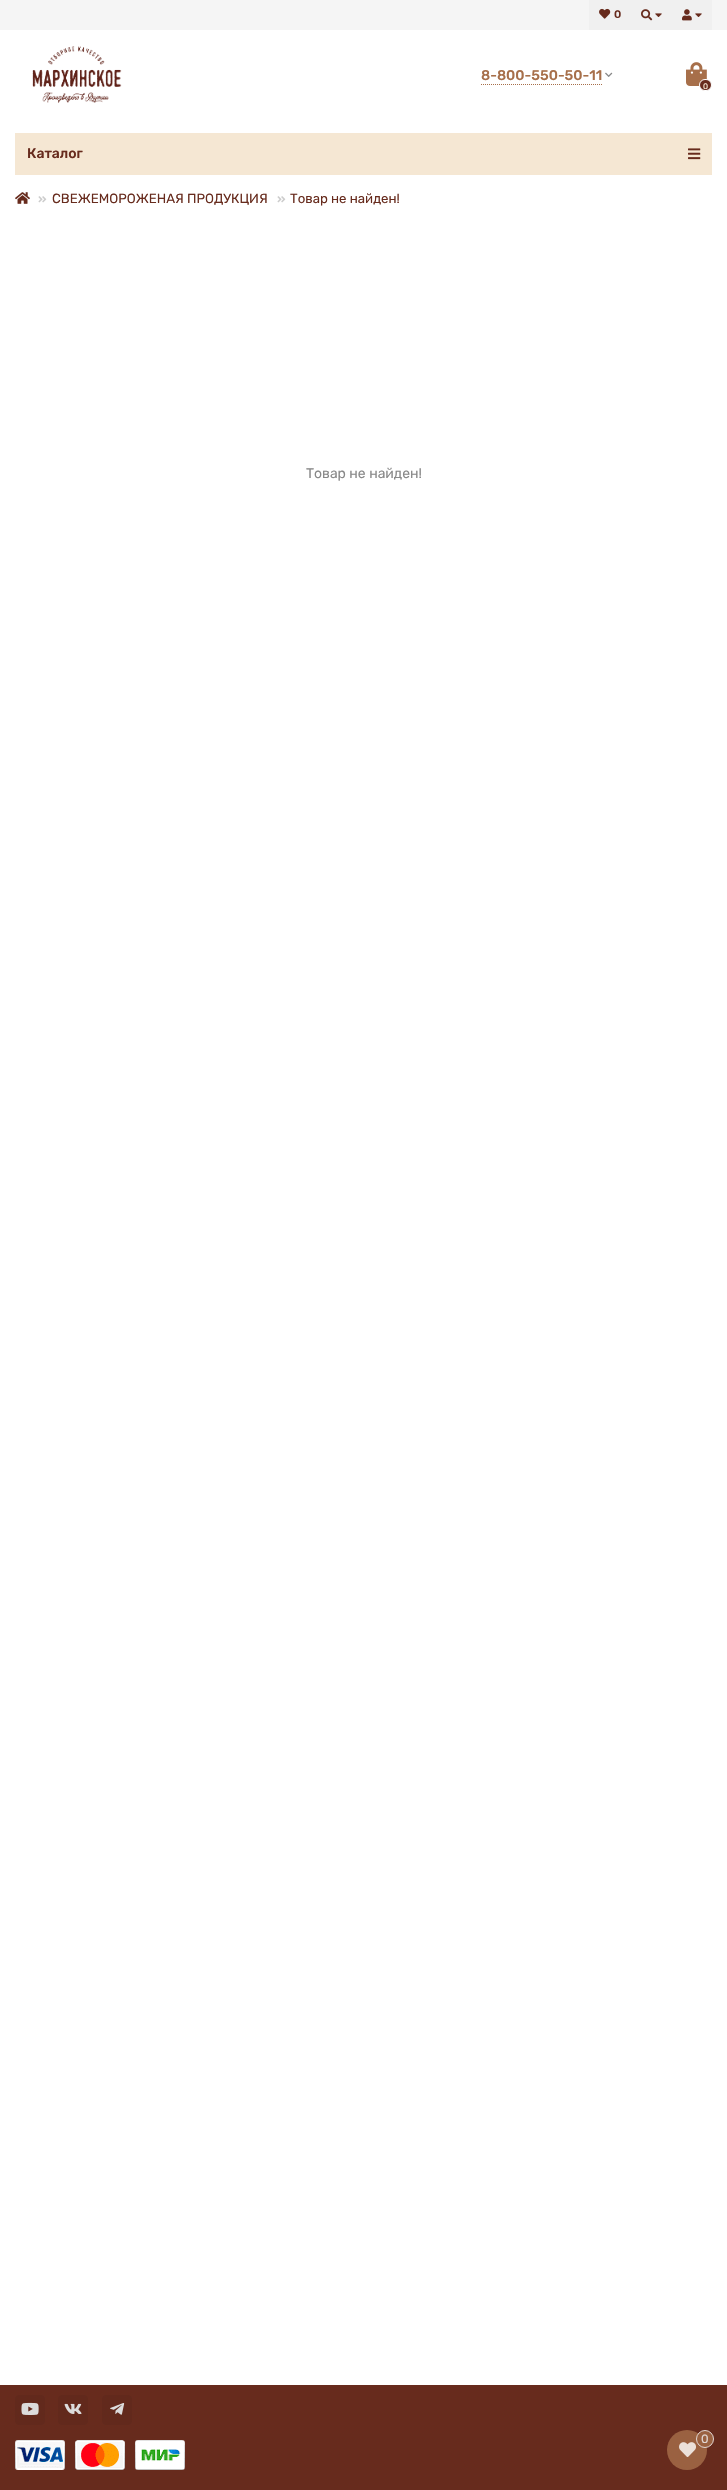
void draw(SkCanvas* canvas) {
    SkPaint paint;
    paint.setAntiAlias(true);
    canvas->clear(0xFFFFFFFF);
    paint.setColor(0xFFF5F5F5);
    canvas->drawRect(SkRect::MakeXYWH(0, 0, 727, 30), paint);
    paint.setColor(0xFFF0F0F0);
    canvas->drawRect(SkRect::MakeXYWH(589, 0, 123, 30), paint);
    canvas->drawImageRect(SkImages::DeferredFromEncodedData(SkData::MakeFromFileName("img1.png")), SkRect::MakeXYWH(682, 9, 10, 12), SkSamplingOptions());
    canvas->drawImageRect(SkImages::DeferredFromEncodedData(SkData::MakeFromFileName("img2.png")), SkRect::MakeXYWH(695, 13, 7, 4), SkSamplingOptions());
    canvas->drawImageRect(SkImages::DeferredFromEncodedData(SkData::MakeFromFileName("img3.png")), SkRect::MakeXYWH(599, 8, 12, 11), SkSamplingOptions());
    SkFont font1(fontMgr->matchFamilyStyle("Rubik", SkFontStyle(500, SkFontStyle::kNormal_Width, SkFontStyle::kUpright_Slant)), 11);
    font1.setSubpixel(true);
    paint.setColor(0xFF672B1D);
    canvas->drawString("0", 614, 18, font1, paint);
    canvas->drawImageRect(SkImages::DeferredFromEncodedData(SkData::MakeFromFileName("img4.png")), SkRect::MakeXYWH(641, 9, 12, 12), SkSamplingOptions());
    canvas->drawImageRect(SkImages::DeferredFromEncodedData(SkData::MakeFromFileName("img2.png")), SkRect::MakeXYWH(655, 13, 7, 4), SkSamplingOptions());
    canvas->drawImageRect(SkImages::DeferredFromEncodedData(SkData::MakeFromFileName("img5.png")), SkRect::MakeXYWH(32, 46, 90, 57), SkSamplingOptions());
    SkFont font2(fontMgr->matchFamilyStyle("Rubik", SkFontStyle(500, SkFontStyle::kNormal_Width, SkFontStyle::kUpright_Slant)), 14);
    font2.setSubpixel(true);
    paint.setColor(0xFFA76F4A);
    canvas->drawString("8-800-550-50-11", 481, 80, font2, paint);
    paint.setStyle(SkPaint::kStroke_Style);
    paint.setStrokeWidth(1);
    paint.setPathEffect(SkDashPathEffect::Make({{1, 1}}, 0));
    canvas->drawPath(SkPathBuilder().moveTo(481, 84.5f).lineTo(603, 84.5f).detach(), paint);
    paint.setPathEffect(nullptr);
    canvas->drawImageRect(SkImages::DeferredFromEncodedData(SkData::MakeFromFileName("img6.png")), SkRect::MakeXYWH(605, 72, 8, 5), SkSamplingOptions());
    canvas->drawImageRect(SkImages::DeferredFromEncodedData(SkData::MakeFromFileName("img7.png")), SkRect::MakeXYWH(686, 62, 21, 24), SkSamplingOptions());
    paint.setStyle(SkPaint::kFill_Style);
    paint.setColor(0xFF672B1D);
    canvas->drawRoundRect(SkRect::MakeXYWH(699.5f, 79.5f, 12, 11), 5.5f, 5.5f, paint);
    paint.setStyle(SkPaint::kStroke_Style);
    paint.setColor(0xFFFFFFFF);
    canvas->drawRoundRect(SkRect::MakeXYWH(699.5f, 79.5f, 12, 11), 5.5f, 5.5f, paint);
    SkFont font3(fontMgr->matchFamilyStyle("Rubik", SkFontStyle::Normal()), 8);
    font3.setSubpixel(true);
    paint.setStyle(SkPaint::kFill_Style);
    paint.setColor(0xFFF5E7D3);
    canvas->drawString("0", 703, 89, font3, paint);
    canvas->drawRect(SkRect::MakeXYWH(15, 133, 697, 42), paint);
    paint.setColor(0xFF672B1D);
    canvas->drawString("Каталог", 27, 158, font2, paint);
    canvas->drawImageRect(SkImages::DeferredFromEncodedData(SkData::MakeFromFileName("img8.png")), SkRect::MakeXYWH(688, 148, 13, 12), SkSamplingOptions());
    canvas->drawImageRect(SkImages::DeferredFromEncodedData(SkData::MakeFromFileName("img9.png")), SkRect::MakeXYWH(15, 192, 15, 12), SkSamplingOptions());
    canvas->drawImageRect(SkImages::DeferredFromEncodedData(SkData::MakeFromFileName("img10.png")), SkRect::MakeXYWH(38, 196, 9, 7), SkSamplingOptions());
    SkFont font4(fontMgr->matchFamilyStyle("Rubik", SkFontStyle::Normal()), 13.25f);
    font4.setSubpixel(true);
    canvas->drawString("СВЕЖЕМОРОЖЕНАЯ ПРОДУКЦИЯ", 52, 203, font4, paint);
    canvas->drawImageRect(SkImages::DeferredFromEncodedData(SkData::MakeFromFileName("img10.png")), SkRect::MakeXYWH(277, 196, 9, 7), SkSamplingOptions());
    canvas->drawString("Товар не найден!", 290, 203, font4, paint);
    SkFont font5(fontMgr->matchFamilyStyle("Rubik", SkFontStyle::Normal()), 14);
    font5.setSubpixel(true);
    paint.setColor(0xFF888888);
    canvas->drawString("Товар не найден!", 306, 478, font5, paint);
    paint.setColor(0xFF672B1D);
    canvas->drawRect(SkRect::MakeXYWH(0, 2385, 727, 105), paint);
    paint.setColor(0xFF62291C);
    canvas->drawRoundRect(SkRect::MakeXYWH(15, 2395, 30, 30), 4, 4, paint);
    canvas->drawImageRect(SkImages::DeferredFromEncodedData(SkData::MakeFromFileName("img11.png")), SkRect::MakeXYWH(21, 2402, 18, 13), SkSamplingOptions());
    canvas->drawRoundRect(SkRect::MakeXYWH(58, 2395, 30, 30), 4, 4, paint);
    canvas->drawImageRect(SkImages::DeferredFromEncodedData(SkData::MakeFromFileName("img12.png")), SkRect::MakeXYWH(64, 2403, 18, 11), SkSamplingOptions());
    canvas->drawRoundRect(SkRect::MakeXYWH(102, 2395, 30, 30), 4, 4, paint);
    canvas->drawImageRect(SkImages::DeferredFromEncodedData(SkData::MakeFromFileName("img13.png")), SkRect::MakeXYWH(110, 2403, 15, 12), SkSamplingOptions());
    canvas->drawImageRect(SkImages::DeferredFromEncodedData(SkData::MakeFromFileName("img14.png")), SkRect::MakeXYWH(15, 2440, 50, 30), SkSamplingOptions());
    canvas->drawImageRect(SkImages::DeferredFromEncodedData(SkData::MakeFromFileName("img15.png")), SkRect::MakeXYWH(75, 2440, 50, 30), SkSamplingOptions());
    canvas->drawImageRect(SkImages::DeferredFromEncodedData(SkData::MakeFromFileName("img16.png")), SkRect::MakeXYWH(135, 2440, 50, 30), SkSamplingOptions());
    paint.setColor(0xFF9A6141);
    canvas->drawCircle(687, 2450, 20, paint);
    canvas->drawCircle(705, 2439, 8.5f, paint);
    paint.setStyle(SkPaint::kStroke_Style);
    paint.setColor(0xFFE1D5D2);
    canvas->drawCircle(705, 2439, 8.5f, paint);
    SkFont font6(fontMgr->matchFamilyStyle("Rubik", SkFontStyle::Normal()), 12);
    font6.setSubpixel(true);
    paint.setStyle(SkPaint::kFill_Style);
    canvas->drawString("0", 701, 2443, font6, paint);
    canvas->drawImageRect(SkImages::DeferredFromEncodedData(SkData::MakeFromFileName("img17.png")), SkRect::MakeXYWH(679, 2442, 17, 15), SkSamplingOptions());
}
